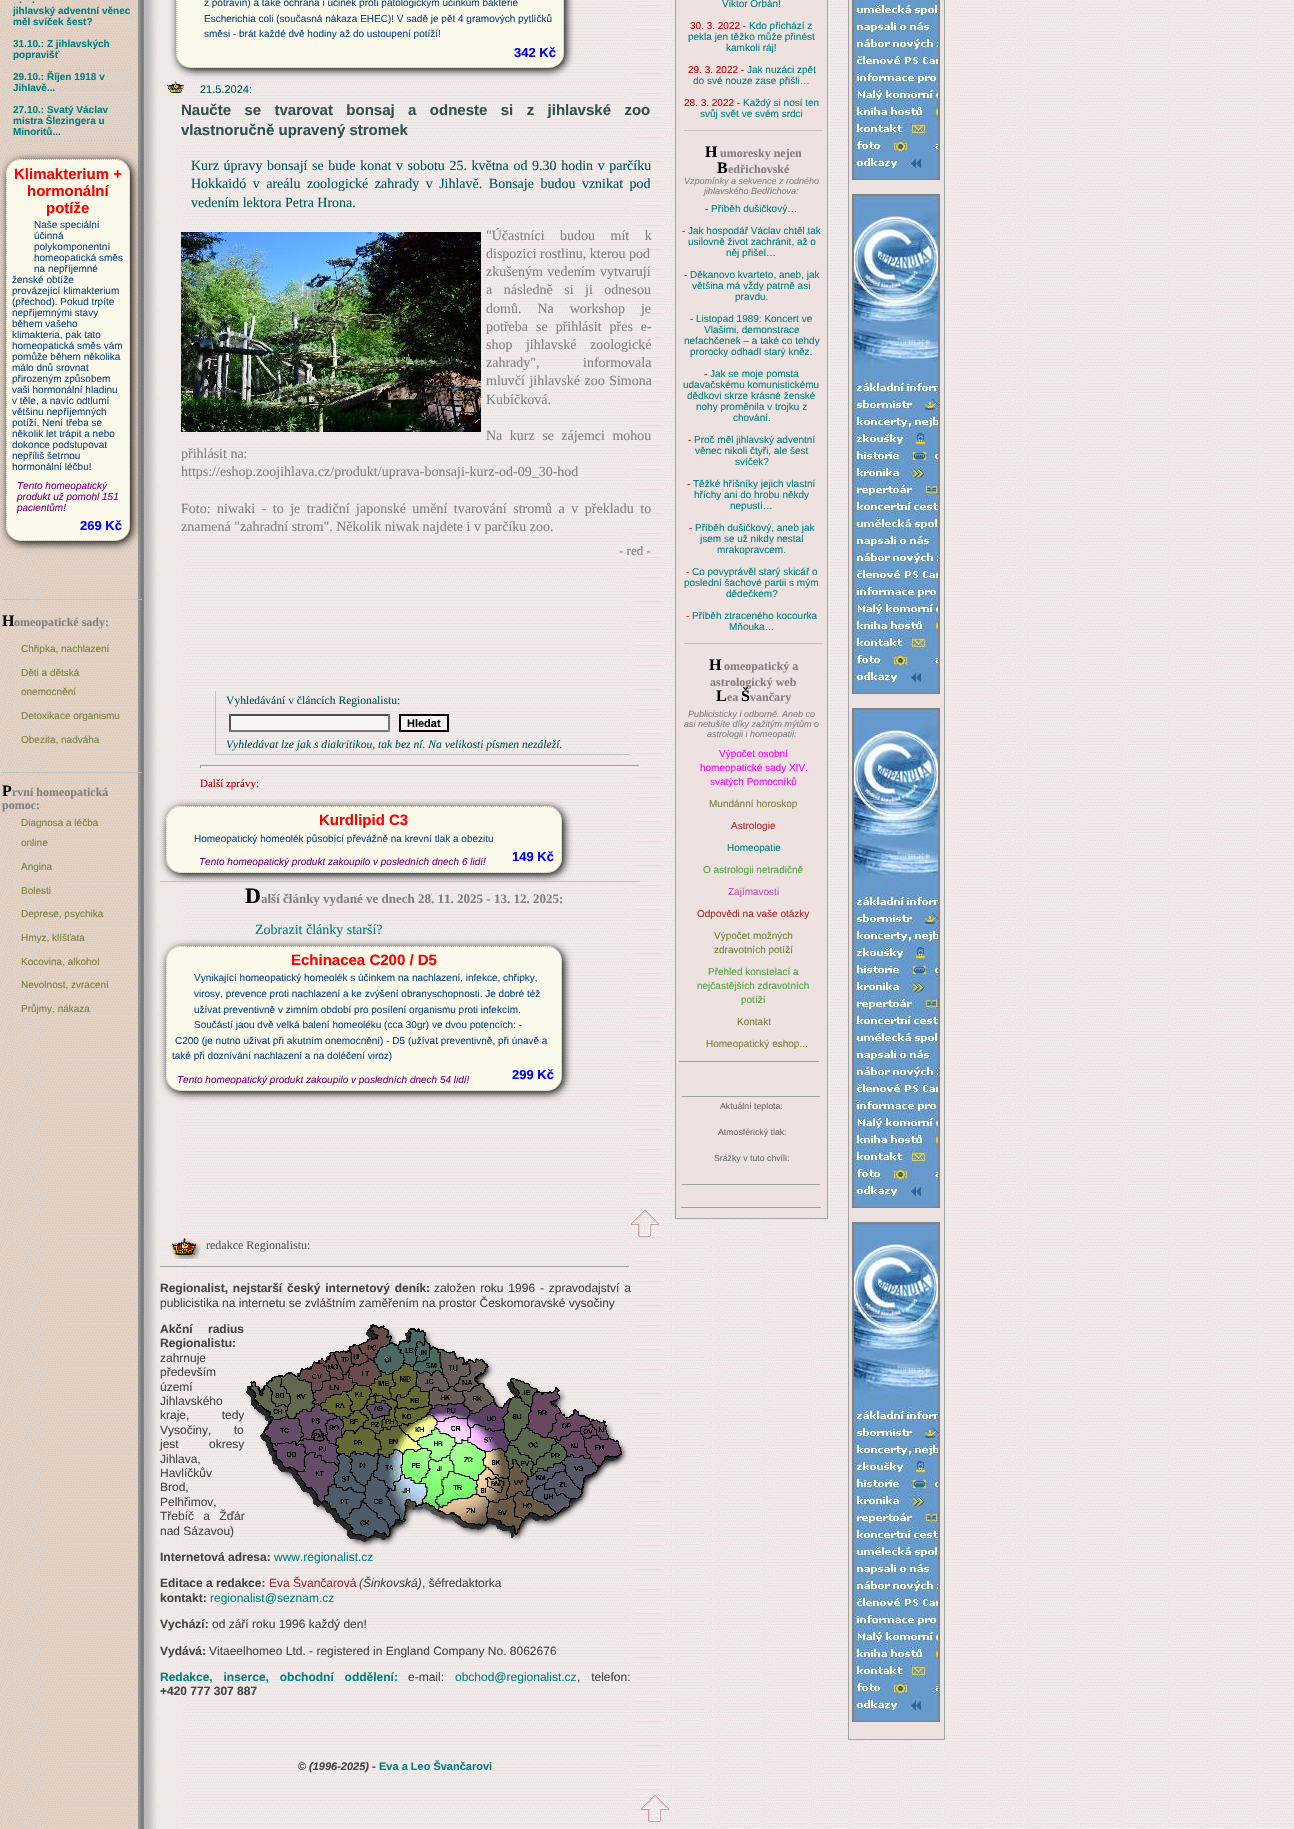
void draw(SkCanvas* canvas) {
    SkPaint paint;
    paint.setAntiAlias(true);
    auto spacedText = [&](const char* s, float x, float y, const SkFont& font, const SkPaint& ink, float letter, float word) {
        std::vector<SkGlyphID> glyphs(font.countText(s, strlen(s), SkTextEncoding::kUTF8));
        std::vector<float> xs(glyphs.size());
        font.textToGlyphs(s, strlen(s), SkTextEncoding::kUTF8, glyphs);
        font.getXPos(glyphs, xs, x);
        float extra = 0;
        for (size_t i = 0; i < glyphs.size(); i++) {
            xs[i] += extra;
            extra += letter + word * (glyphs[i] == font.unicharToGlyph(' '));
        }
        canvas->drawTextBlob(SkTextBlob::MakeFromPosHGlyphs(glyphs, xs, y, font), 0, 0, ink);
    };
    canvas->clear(0xFFFFFFFF);
    canvas->drawImageRect(SkImages::DeferredFromEncodedData(SkData::MakeFromFileName("img1.png")), SkRect::MakeXYWH(0, 0, 1294, 1829), SkSamplingOptions());
    canvas->drawImageRect(SkImages::DeferredFromEncodedData(SkData::MakeFromFileName("img2.png")), SkRect::MakeXYWH(0, 0, 160, 142), SkSamplingOptions());
    SkFont font1(fontMgr->matchFamilyStyle("Liberation Sans", SkFontStyle::Bold()), 10);
    font1.setSubpixel(true);
    paint.setColor(0xFF008080);
    canvas->drawString(".", 19, 3, font1, paint);
    canvas->drawString(".", 32, 3, font1, paint);
    canvas->drawString("jihlavský adventní věnec", 13, 14, font1, paint);
    canvas->drawString("měl svíček šest?", 13, 25, font1, paint);
    canvas->drawString("31.10.: Z jihlavských", 13, 47, font1, paint);
    canvas->drawString("popravišť", 13, 58, font1, paint);
    canvas->drawString("29.10.: Říjen 1918 v", 13, 80, font1, paint);
    canvas->drawString("Jihlavě...", 13, 91, font1, paint);
    canvas->drawString("27.10.: Svatý Václav", 13, 113, font1, paint);
    canvas->drawString("mistra Šlezingera u", 13, 124, font1, paint);
    canvas->drawString("Minoritů...", 13, 135, font1, paint);
    paint.setColor(0xFF000000);
    paint.setMaskFilter(SkMaskFilter::MakeBlur(kNormal_SkBlurStyle, 4));
    canvas->drawRoundRect(SkRect::MakeXYWH(8, 161, 124, 382), 15, 15, paint);
    paint.setMaskFilter(nullptr);
    paint.setColor(0xFFFBF9E9);
    canvas->drawRoundRect(SkRect::MakeXYWH(6, 159, 124, 382), 15, 15, paint);
    paint.setStyle(SkPaint::kStroke_Style);
    paint.setStrokeWidth(1);
    paint.setColor(0xFFC0C0C0);
    paint.setPathEffect(SkDashPathEffect::Make({{1, 1}}, 0));
    canvas->drawPath(SkPathBuilder().moveTo(21, 159.5f).lineTo(115, 159.5f).cubicTo(123, 159.5f, 129.5f, 166, 129.5f, 174).lineTo(129.5f, 526).cubicTo(129.5f, 534, 123, 540.5f, 115, 540.5f).lineTo(21, 540.5f).cubicTo(13, 540.5f, 6.5f, 534, 6.5f, 526).lineTo(6.5f, 174).cubicTo(6.5f, 166, 13, 159.5f, 21, 159.5f).close().detach(), paint);
    paint.setPathEffect(nullptr);
    SkFont font2(fontMgr->matchFamilyStyle("Liberation Sans", SkFontStyle::Bold()), 15);
    font2.setSubpixel(true);
    paint.setStyle(SkPaint::kFill_Style);
    paint.setColor(0xFFFF0000);
    canvas->drawString("Klimakterium +", 14, 179, font2, paint);
    canvas->drawString("hormonální", 27, 196, font2, paint);
    canvas->drawString("potíže", 46, 213, font2, paint);
    SkFont font3(fontMgr->matchFamilyStyle("Liberation Sans", SkFontStyle::Normal()), 10);
    font3.setSubpixel(true);
    paint.setColor(0xFF114883);
    canvas->drawString("Naše speciální", 34, 228, font3, paint);
    canvas->drawString("účinná", 34, 239, font3, paint);
    canvas->drawString("polykomponentní", 34, 250, font3, paint);
    canvas->drawString("homeopatická směs", 34, 261, font3, paint);
    canvas->drawString("na nepříjemné", 34, 272, font3, paint);
    canvas->drawString("ženské obtíže", 12, 283, font3, paint);
    canvas->drawString("provázející klimakterium", 12, 294, font3, paint);
    canvas->drawString("(přechod). Pokud trpíte", 12, 305, font3, paint);
    canvas->drawString("nepříjemnými stavy", 12, 316, font3, paint);
    canvas->drawString("během vašeho", 12, 327, font3, paint);
    canvas->drawString("klimakteria, pak tato", 12, 338, font3, paint);
    canvas->drawString("homeopatická směs vám", 12, 349, font3, paint);
    canvas->drawString("pomůže během několika", 12, 360, font3, paint);
    canvas->drawString("málo dnů srovnat", 12, 371, font3, paint);
    canvas->drawString("přirozeným způsobem", 12, 382, font3, paint);
    canvas->drawString("vaši hormonální hladinu", 12, 393, font3, paint);
    canvas->drawString("v těle, a navíc odtlumí", 12, 404, font3, paint);
    canvas->drawString("většinu nepříjemných", 12, 415, font3, paint);
    canvas->drawString("potíží. Není třeba se", 12, 426, font3, paint);
    canvas->drawString("několik let trápit a nebo", 12, 437, font3, paint);
    canvas->drawString("dokonce podstupovat", 12, 448, font3, paint);
    canvas->drawString("nepříliš šetrnou", 12, 459, font3, paint);
    canvas->drawString("hormonální léčbu!", 12, 470, font3, paint);
    SkFont font4(fontMgr->matchFamilyStyle("Liberation Sans", SkFontStyle::Italic()), 10);
    font4.setSubpixel(true);
    paint.setColor(0xFF800080);
    canvas->drawString("Tento homeopatický", 17, 489, font4, paint);
    canvas->drawString("produkt už pomohl 151", 17, 500, font4, paint);
    canvas->drawString("pacientům!", 17, 511, font4, paint);
    SkFont font5(fontMgr->matchFamilyStyle("Liberation Sans", SkFontStyle::Bold()), 13);
    font5.setSubpixel(true);
    paint.setColor(0xFF0000FF);
    canvas->drawString("269 Kč", 80, 530, font5, paint);
    paint.setColor(0xFFC0C0C0);
    canvas->drawRect(SkRect::MakeXYWH(2, 599, 140, 1), paint);
    SkFont font6(fontMgr->matchFamilyStyle("Liberation Serif", SkFontStyle::Bold()), 16);
    font6.setSubpixel(true);
    paint.setColor(0xFF000000);
    canvas->drawString("H", 2, 626, font6, paint);
    SkFont font7(fontMgr->matchFamilyStyle("Liberation Serif", SkFontStyle::Bold()), 12);
    font7.setSubpixel(true);
    paint.setColor(0xFF808080);
    canvas->drawString("omeopatické sady:", 14, 626, font7, paint);
    paint.setColor(0xFF77813F);
    canvas->drawString("Chřipka, nachlazení", 21, 652, font3, paint);
    canvas->drawString("Děti a dětská", 21, 676, font3, paint);
    canvas->drawString("onemocnění", 21, 695, font3, paint);
    canvas->drawString("Detoxikace organismu", 21, 719, font3, paint);
    canvas->drawString("Obezita, nadváha", 21, 743, font3, paint);
    paint.setColor(0xFFC0C0C0);
    canvas->drawRect(SkRect::MakeXYWH(2, 772, 140, 1), paint);
    paint.setColor(0xFF000000);
    canvas->drawString("P", 2, 796, font6, paint);
    paint.setColor(0xFF808080);
    canvas->drawString("rvní homeopatická", 12, 796, font7, paint);
    canvas->drawString("pomoc:", 2, 809, font7, paint);
    paint.setColor(0xFF77813F);
    canvas->drawString("Diagnosa a léčba", 21, 826, font3, paint);
    canvas->drawString("online", 21, 846, font3, paint);
    canvas->drawString("Angina", 21, 870, font3, paint);
    canvas->drawString("Bolesti", 21, 894, font3, paint);
    canvas->drawString("Deprese, psychika", 21, 917, font3, paint);
    canvas->drawString("Hmyz, klíšťata", 21, 941, font3, paint);
    canvas->drawString("Kocovina, alkohol", 21, 965, font3, paint);
    canvas->drawString("Nevolnost, zvracení", 21, 988, font3, paint);
    canvas->drawString("Průjmy, nákaza", 21, 1012, font3, paint);
    canvas->drawImageRect(SkImages::DeferredFromEncodedData(SkData::MakeFromFileName("img3.png")), SkRect::MakeXYWH(167, 81, 17, 12), SkSamplingOptions());
    paint.setColor(0xFF000000);
    paint.setMaskFilter(SkMaskFilter::MakeBlur(kNormal_SkBlurStyle, 4));
    canvas->drawRoundRect(SkRect::MakeXYWH(178, -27, 388, 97), 15, 15, paint);
    paint.setMaskFilter(nullptr);
    paint.setColor(0xFFFBF9E9);
    canvas->drawRoundRect(SkRect::MakeXYWH(176, -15, 388, 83), 15, 15, paint);
    paint.setStyle(SkPaint::kStroke_Style);
    paint.setColor(0xFFC0C0C0);
    paint.setPathEffect(SkDashPathEffect::Make({{1, 1}}, 0));
    canvas->drawPath(SkPathBuilder().moveTo(191, -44.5f).lineTo(549, -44.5f).cubicTo(557, -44.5f, 563.5f, -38, 563.5f, -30).lineTo(563.5f, 53).cubicTo(563.5f, 61, 557, 67.5f, 549, 67.5f).lineTo(191, 67.5f).cubicTo(183, 67.5f, 176.5f, 61, 176.5f, 53).lineTo(176.5f, -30).cubicTo(176.5f, -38, 183, -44.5f, 191, -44.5f).close().detach(), paint);
    paint.setPathEffect(nullptr);
    paint.setStyle(SkPaint::kFill_Style);
    paint.setColor(0xFF114883);
    canvas->drawString("z potravin) a také ochrana i účinek proti patologickým účinkům bakterie", 204, 6, font3, paint);
    canvas->drawString("Escherichia coli (současná nákaza EHEC)! V sadě je pět 4 gramových pytlíčků", 204, 22, font3, paint);
    canvas->drawString("směsi - brát každé dvě hodiny až do ustoupení potíží!", 204, 37, font3, paint);
    paint.setColor(0xFF0000FF);
    canvas->drawString("342 Kč", 514, 57, font5, paint);
    SkFont font8(fontMgr->matchFamilyStyle("Liberation Sans", SkFontStyle::Normal()), 11);
    font8.setSubpixel(true);
    paint.setColor(0xFF005757);
    canvas->drawString("21.5.2024:", 200, 93, font8, paint);
    paint.setColor(0xFF315050);
    spacedText("Naučte se tvarovat bonsaj a odneste si z jihlavské zoo", 181, 115, font2, paint, 0, 9.25f);
    canvas->drawString("vlastnoručně upravený stromek", 181, 135, font2, paint);
    SkFont font9(fontMgr->matchFamilyStyle("Liberation Serif", SkFontStyle::Normal()), 14);
    font9.setSubpixel(true);
    paint.setColor(0xFF005757);
    spacedText("Kurz úpravy bonsají se bude konat v sobotu 25. května od 9.30 hodin v parčíku", 191, 170, font9, paint, 0, 1.1f);
    spacedText("Hokkaidó v areálu zoologické zahrady v Jihlavě. Bonsaje budou vznikat pod", 191, 188, font9, paint, 0, 3);
    canvas->drawString("vedením lektora Petra Hrona.", 191, 207, font9, paint);
    paint.setColor(0xFF808080);
    spacedText("\"Účastníci budou mít k", 486, 240, font9, paint, 0, 12);
    canvas->drawString("dispozici rostlinu, kterou pod", 486, 258, font9, paint);
    spacedText("zkušeným vedením vytvarují", 486, 276, font9, paint, 0, 1);
    spacedText("a následně si ji odnesou", 486, 294, font9, paint, 0, 8);
    spacedText("domů. Na workshop je", 486, 313, font9, paint, 0, 12.5f);
    spacedText("potřeba se přihlásit přes e-", 486, 331, font9, paint, 0, 4.5f);
    spacedText("shop jihlavské zoologické", 486, 349, font9, paint, 0, 10);
    spacedText("zahrady\", informovala", 486, 367, font9, paint, 0, 40);
    spacedText("mluvčí jihlavské zoo Simona", 486, 385, font9, paint, 0, 1);
    canvas->drawString("Kubíčková.", 486, 404, font9, paint);
    spacedText("Na kurz se zájemci mohou", 486, 440, font9, paint, 0, 4);
    canvas->drawString("přihlásit na:", 181, 458, font9, paint);
    canvas->drawString("https://eshop.zoojihlava.cz/produkt/uprava-bonsaji-kurz-od-09_30-hod", 181, 476, font9, paint);
    spacedText("Foto: niwaki - to je tradiční japonské umění tvarování stromů a v překladu to", 181, 513, font9, paint, 0, 3);
    canvas->drawString("znamená \"zahradní strom\". Několik niwak najdete i v parčíku zoo.", 181, 531, font9, paint);
    canvas->drawImageRect(SkImages::DeferredFromEncodedData(SkData::MakeFromFileName("img4.png")), SkRect::MakeXYWH(181, 232, 300, 200), SkSamplingOptions());
    SkFont font10(fontMgr->matchFamilyStyle("Liberation Serif", SkFontStyle::Normal()), 13);
    font10.setSubpixel(true);
    canvas->drawString("- red -", 619, 555, font10, paint);
    paint.setColor(0xFFC0C0C0);
    canvas->drawRect(SkRect::MakeXYWH(215, 754, 415, 1), paint);
    canvas->drawRect(SkRect::MakeXYWH(215, 691, 1, 64), paint);
    SkFont font11(fontMgr->matchFamilyStyle("Liberation Serif", SkFontStyle::Normal()), 11.6f);
    font11.setSubpixel(true);
    paint.setColor(0xFF005757);
    canvas->drawString("Vyhledávání v článcích Regionalistu:", 226, 704, font11, paint);
    paint.setColor(0xFFF5F5F5);
    canvas->drawRect(SkRect::MakeXYWH(229, 714, 161, 18), paint);
    paint.setColor(0xFF4F4F4F);
    canvas->drawPath(SkPathBuilder().moveTo(229, 714).lineTo(390, 714).lineTo(388, 716).lineTo(231, 716).close().detach(), paint);
    paint.setColor(0xFF767676);
    canvas->drawPath(SkPathBuilder().moveTo(390, 714).lineTo(390, 732).lineTo(388, 730).lineTo(388, 716).close().detach(), paint);
    canvas->drawPath(SkPathBuilder().moveTo(390, 732).lineTo(229, 732).lineTo(231, 730).lineTo(388, 730).close().detach(), paint);
    paint.setColor(0xFF4F4F4F);
    canvas->drawPath(SkPathBuilder().moveTo(229, 732).lineTo(229, 714).lineTo(231, 716).lineTo(231, 730).close().detach(), paint);
    paint.setColor(0xFFF5F5F5);
    canvas->drawRect(SkRect::MakeXYWH(400, 715, 48, 16), paint);
    paint.setStyle(SkPaint::kStroke_Style);
    paint.setStrokeWidth(2);
    paint.setColor(0xFF000000);
    canvas->drawRect(SkRect::MakeXYWH(400, 715, 48, 16), paint);
    SkFont font12(fontMgr->matchFamilyStyle("Liberation Sans", SkFontStyle::Bold()), 11);
    font12.setSubpixel(true);
    paint.setStyle(SkPaint::kFill_Style);
    canvas->drawString("Hledat", 407, 727, font12, paint);
    SkFont font13(fontMgr->matchFamilyStyle("Liberation Serif", SkFontStyle::Italic()), 11.6f);
    font13.setSubpixel(true);
    paint.setColor(0xFF005757);
    canvas->drawString("Vyhledávat lze jak s diakritikou, tak bez ní. Na velikosti písmen nezáleží.", 226, 748, font13, paint);
    paint.setColor(0xFF9F9F9F);
    canvas->drawRect(SkRect::MakeXYWH(200, 765, 440, 1), paint);
    paint.setColor(0xFFEEEEEE);
    canvas->drawRect(SkRect::MakeXYWH(639, 765, 1, 3), paint);
    canvas->drawRect(SkRect::MakeXYWH(200, 767, 440, 1), paint);
    paint.setColor(0xFF9F9F9F);
    canvas->drawRect(SkRect::MakeXYWH(200, 765, 1, 3), paint);
    SkFont font14(fontMgr->matchFamilyStyle("Liberation Serif", SkFontStyle::Normal()), 11);
    font14.setSubpixel(true);
    paint.setColor(0xFFB20000);
    canvas->drawString("Další zprávy:", 200, 787, font14, paint);
    paint.setColor(0xFF000000);
    paint.setMaskFilter(SkMaskFilter::MakeBlur(kNormal_SkBlurStyle, 4));
    canvas->drawRoundRect(SkRect::MakeXYWH(168, 808, 396, 67), 15, 15, paint);
    paint.setMaskFilter(nullptr);
    paint.setColor(0xFFFBF9E9);
    canvas->drawRoundRect(SkRect::MakeXYWH(166, 806, 396, 67), 15, 15, paint);
    paint.setStyle(SkPaint::kStroke_Style);
    paint.setStrokeWidth(1);
    paint.setColor(0xFFC0C0C0);
    paint.setPathEffect(SkDashPathEffect::Make({{1, 1}}, 0));
    canvas->drawPath(SkPathBuilder().moveTo(181, 806.5f).lineTo(547, 806.5f).cubicTo(555, 806.5f, 561.5f, 813, 561.5f, 821).lineTo(561.5f, 858).cubicTo(561.5f, 866, 555, 872.5f, 547, 872.5f).lineTo(181, 872.5f).cubicTo(173, 872.5f, 166.5f, 866, 166.5f, 858).lineTo(166.5f, 821).cubicTo(166.5f, 813, 173, 806.5f, 181, 806.5f).close().detach(), paint);
    paint.setPathEffect(nullptr);
    paint.setStyle(SkPaint::kFill_Style);
    paint.setColor(0xFFFF0000);
    canvas->drawString("Kurdlipid C3", 319, 825, font2, paint);
    paint.setColor(0xFF114883);
    canvas->drawString("Homeopatický homeolék působící převážně na krevní tlak a obezitu", 194, 842, font3, paint);
    paint.setColor(0xFF800080);
    canvas->drawString("Tento homeopatický produkt zakoupilo v posledních dnech 6 lidí!", 199, 865, font4, paint);
    paint.setColor(0xFF0000FF);
    canvas->drawString("149 Kč", 512, 861, font5, paint);
    paint.setColor(0xFFC0C0C0);
    canvas->drawRect(SkRect::MakeXYWH(160, 881, 480, 1), paint);
    SkFont font15(fontMgr->matchFamilyStyle("Liberation Serif", SkFontStyle::Bold()), 22);
    font15.setSubpixel(true);
    paint.setColor(0xFF000000);
    canvas->drawString("D", 245, 903, font15, paint);
    SkFont font16(fontMgr->matchFamilyStyle("Liberation Serif", SkFontStyle::Bold()), 13);
    font16.setSubpixel(true);
    paint.setColor(0xFF808080);
    canvas->drawString("alší články vydané ve dnech 28. 11. 2025 - 13. 12. 2025:", 261, 903, font16, paint);
    paint.setColor(0xFF000000);
    paint.setMaskFilter(SkMaskFilter::MakeBlur(kNormal_SkBlurStyle, 4));
    canvas->drawRoundRect(SkRect::MakeXYWH(168, 948, 396, 145), 15, 15, paint);
    paint.setMaskFilter(nullptr);
    paint.setColor(0xFF008080);
    canvas->drawString("Zobrazit články starší?", 255, 934, font9, paint);
    paint.setColor(0xFFFBF9E9);
    canvas->drawRoundRect(SkRect::MakeXYWH(166, 946, 396, 145), 15, 15, paint);
    paint.setStyle(SkPaint::kStroke_Style);
    paint.setColor(0xFFC0C0C0);
    paint.setPathEffect(SkDashPathEffect::Make({{1, 1}}, 0));
    canvas->drawPath(SkPathBuilder().moveTo(181, 946.5f).lineTo(547, 946.5f).cubicTo(555, 946.5f, 561.5f, 953, 561.5f, 961).lineTo(561.5f, 1076).cubicTo(561.5f, 1084, 555, 1090.5f, 547, 1090.5f).lineTo(181, 1090.5f).cubicTo(173, 1090.5f, 166.5f, 1084, 166.5f, 1076).lineTo(166.5f, 961).cubicTo(166.5f, 953, 173, 946.5f, 181, 946.5f).close().detach(), paint);
    paint.setPathEffect(nullptr);
    paint.setStyle(SkPaint::kFill_Style);
    paint.setColor(0xFFFF0000);
    canvas->drawString("Echinacea C200 / D5", 291, 965, font2, paint);
    paint.setColor(0xFF114883);
    canvas->drawString("Vynikající homeopatický homeolék s účinkem na nachlazení, infekce, chřipky,", 194, 981, font3, paint);
    canvas->drawString("virosy, prevence proti nachlazení a ke zvýšení obranyschopnosti. Je dobré též", 194, 997, font3, paint);
    canvas->drawString("užívat preventivně v zimním období pro posílení organismu proti infekcím.", 194, 1013, font3, paint);
    canvas->drawString("Součástí jaou dvě velká balení homeoléku (cca 30gr) ve dvou potencích: -", 194, 1028, font3, paint);
    canvas->drawString("C200 (je nutno užívat při akutním onemocnění) - D5 (užívat preventivně, při únavě a", 175, 1044, font3, paint);
    canvas->drawString("také při doznívání nachlazení a na doléčení viroz)", 172, 1059, font3, paint);
    paint.setColor(0xFF800080);
    canvas->drawString("Tento homeopatický produkt zakoupilo v posledních dnech 54 lidí!", 177, 1083, font4, paint);
    paint.setColor(0xFF0000FF);
    canvas->drawString("299 Kč", 512, 1079, font5, paint);
    canvas->drawImageRect(SkImages::DeferredFromEncodedData(SkData::MakeFromFileName("img5.png")), SkRect::MakeXYWH(631, 1209, 28, 28), SkSamplingOptions());
    canvas->drawImageRect(SkImages::DeferredFromEncodedData(SkData::MakeFromFileName("img6.png")), SkRect::MakeXYWH(160, 1238, 46, 21), SkSamplingOptions());
    SkFont font17(fontMgr->matchFamilyStyle("Liberation Serif", SkFontStyle::Normal()), 12);
    font17.setSubpixel(true);
    paint.setColor(0xFF575757);
    canvas->drawString("redakce Regionalistu:", 206, 1249, font17, paint);
    paint.setColor(0xFF9F9F9F);
    canvas->drawRect(SkRect::MakeXYWH(160, 1266, 470, 1), paint);
    paint.setColor(0xFFEEEEEE);
    canvas->drawRect(SkRect::MakeXYWH(629, 1266, 1, 1), paint);
    SkFont font18(fontMgr->matchFamilyStyle("Liberation Sans", SkFontStyle::Bold()), 12);
    font18.setSubpixel(true);
    paint.setColor(0xFF444444);
    spacedText("Regionalist, nejstarší český internetový deník:", 160, 1292, font18, paint, 0, 1.5f);
    SkFont font19(fontMgr->matchFamilyStyle("Liberation Sans", SkFontStyle::Normal()), 12);
    font19.setSubpixel(true);
    spacedText("založen roku 1996 - zpravodajství a", 434, 1292, font19, paint, 0, 1.5f);
    canvas->drawString("publicistika na internetu se zvláštním zaměřením na prostor Českomoravské vysočiny", 160, 1307, font19, paint);
    spacedText("Akční radius", 160, 1333, font18, paint, 0, 12);
    canvas->drawImageRect(SkImages::DeferredFromEncodedData(SkData::MakeFromFileName("img7.png")), SkRect::MakeXYWH(245, 1323, 384, 226), SkSamplingOptions());
    canvas->drawString("Regionalistu:", 160, 1347, font18, paint);
    canvas->drawString("zahrnuje", 160, 1362, font19, paint);
    canvas->drawString("především", 160, 1376, font19, paint);
    canvas->drawString("území", 160, 1391, font19, paint);
    canvas->drawString("Jihlavského", 160, 1405, font19, paint);
    spacedText("kraje, tedy", 160, 1419, font19, paint, 0, 29);
    spacedText("Vysočiny, to", 160, 1434, font19, paint, 0, 19);
    spacedText("jest okresy", 160, 1448, font19, paint, 0, 27);
    canvas->drawString("Jihlava,", 160, 1463, font19, paint);
    canvas->drawString("Havlíčkův", 160, 1477, font19, paint);
    canvas->drawString("Brod,", 160, 1491, font19, paint);
    canvas->drawString("Pelhřimov,", 160, 1506, font19, paint);
    spacedText("Třebíč a Žďár", 160, 1520, font19, paint, 0, 6);
    canvas->drawString("nad Sázavou)", 160, 1535, font19, paint);
    canvas->drawString("Internetová adresa:", 160, 1561, font18, paint);
    paint.setColor(0xFF008080);
    canvas->drawString("www.regionalist.cz", 274, 1561, font19, paint);
    paint.setColor(0xFF444444);
    canvas->drawString("Editace a redakce:", 160, 1587, font18, paint);
    paint.setColor(0xFFA52A2A);
    canvas->drawString("Eva Švančarová", 269, 1587, font19, paint);
    SkFont font20(fontMgr->matchFamilyStyle("Liberation Sans", SkFontStyle::Italic()), 12);
    font20.setSubpixel(true);
    paint.setColor(0xFF444444);
    canvas->drawString("(Šinkovská)", 359, 1587, font20, paint);
    canvas->drawString(", šéfredaktorka", 422, 1587, font19, paint);
    canvas->drawString("kontakt:", 160, 1602, font18, paint);
    paint.setColor(0xFF008080);
    canvas->drawString("regionalist@seznam.cz", 210, 1602, font19, paint);
    paint.setColor(0xFF444444);
    canvas->drawString("Vychází:", 160, 1628, font18, paint);
    canvas->drawString("od září roku 1996 každý den!", 212, 1628, font19, paint);
    canvas->drawString("Vydává:", 160, 1655, font18, paint);
    canvas->drawString("Vitaeelhomeo Ltd. - registered in England Company No. 8062676", 209, 1655, font19, paint);
    paint.setColor(0xFF008080);
    spacedText("Redakce, inserce, obchodní oddělení:", 160, 1681, font18, paint, 0, 7.5f);
    paint.setColor(0xFF444444);
    canvas->drawString("e-mail:", 408, 1681, font19, paint);
    paint.setColor(0xFF008080);
    canvas->drawString("obchod@regionalist.cz", 455, 1681, font19, paint);
    paint.setColor(0xFF444444);
    spacedText(", telefon:", 577, 1681, font19, paint, 0, 7.5f);
    canvas->drawString("+420 777 307 887", 160, 1695, font18, paint);
    canvas->drawString("©", 298, 1770, font12, paint);
    SkFont font21(fontMgr->matchFamilyStyle("Liberation Sans", SkFontStyle::BoldItalic()), 11);
    font21.setSubpixel(true);
    canvas->drawString("(1996-2025)", 309, 1770, font21, paint);
    canvas->drawString("-", 372, 1770, font12, paint);
    paint.setColor(0xFF008080);
    canvas->drawString("Eva a Leo Švančarovi", 379, 1770, font12, paint);
    canvas->drawImageRect(SkImages::DeferredFromEncodedData(SkData::MakeFromFileName("img8.png")), SkRect::MakeXYWH(641, 1794, 28, 28), SkSamplingOptions());
    paint.setColor(0xFFEDE2E0);
    canvas->drawRect(SkRect::MakeXYWH(675.5f, -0.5f, 152, 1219), paint);
    paint.setStyle(SkPaint::kStroke_Style);
    paint.setColor(0xFFA4A4A4);
    canvas->drawRect(SkRect::MakeXYWH(675.5f, -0.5f, 152, 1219), paint);
    paint.setStyle(SkPaint::kFill_Style);
    paint.setColor(0xFF008080);
    canvas->drawString("Viktor Orbán!", 722, 7, font3, paint);
    paint.setColor(0xFFC80000);
    canvas->drawString("30. 3. 2022 -", 690, 29, font3, paint);
    paint.setColor(0xFF008080);
    canvas->drawString("Kdo přichází z", 749, 29, font3, paint);
    canvas->drawString("pekla jen těžko může přinést", 688, 40, font3, paint);
    canvas->drawString("kamkoli ráj!", 726, 51, font3, paint);
    paint.setColor(0xFFC80000);
    canvas->drawString("29. 3. 2022 -", 688, 73, font3, paint);
    paint.setColor(0xFF008080);
    canvas->drawString("Jak nuzáci zpět", 747, 73, font3, paint);
    canvas->drawString("do své nouze zase přišli…", 693, 84, font3, paint);
    paint.setColor(0xFFC80000);
    canvas->drawString("28. 3. 2022 -", 684, 106, font3, paint);
    paint.setColor(0xFF008080);
    canvas->drawString("Každý si nosí ten", 743, 106, font3, paint);
    canvas->drawString("svůj svět ve svém srdci", 700, 117, font3, paint);
    paint.setColor(0xFFC0C0C0);
    canvas->drawRect(SkRect::MakeXYWH(684, 130, 139, 1), paint);
    paint.setColor(0xFF000000);
    canvas->drawString("H", 705, 157, font6, paint);
    paint.setColor(0xFF808080);
    canvas->drawString("umoresky nejen", 720, 157, font7, paint);
    paint.setColor(0xFF000000);
    canvas->drawString("B", 717, 173, font6, paint);
    paint.setColor(0xFF808080);
    canvas->drawString("edřichovské", 728, 173, font7, paint);
    SkFont font22(fontMgr->matchFamilyStyle("Liberation Sans", SkFontStyle::Italic()), 9);
    font22.setSubpixel(true);
    canvas->drawString("Vzpomínky a sekvence z rodného", 684, 184, font22, paint);
    canvas->drawString("jihlavského Bedřichova:", 704, 194, font22, paint);
    paint.setColor(0xFFC80000);
    canvas->drawString("-", 705, 212, font3, paint);
    paint.setColor(0xFF008080);
    canvas->drawString("Příběh dušičkový…", 711, 212, font3, paint);
    paint.setColor(0xFFC80000);
    canvas->drawString("-", 682, 234, font3, paint);
    paint.setColor(0xFF008080);
    canvas->drawString("Jak hospodář Václav chtěl tak", 688, 234, font3, paint);
    canvas->drawString("usilovně život zachránit, až o", 688, 245, font3, paint);
    canvas->drawString("něj přišel…", 726, 256, font3, paint);
    paint.setColor(0xFFC80000);
    canvas->drawString("-", 684, 278, font3, paint);
    paint.setColor(0xFF008080);
    canvas->drawString("Děkanovo kvarteto, aneb, jak", 690, 278, font3, paint);
    canvas->drawString("většina má vždy patrně asi", 692, 289, font3, paint);
    canvas->drawString("pravdu.", 735, 300, font3, paint);
    paint.setColor(0xFFC80000);
    canvas->drawString("-", 690, 322, font3, paint);
    paint.setColor(0xFF008080);
    canvas->drawString("Listopad 1989: Koncert ve", 696, 322, font3, paint);
    canvas->drawString("Vlašimi, demonstrace", 704, 333, font3, paint);
    canvas->drawString("nefachčenek – a také co tehdy", 684, 344, font3, paint);
    canvas->drawString("prorocky odhadl starý kněz.", 690, 355, font3, paint);
    paint.setColor(0xFFC80000);
    canvas->drawString("-", 704, 377, font3, paint);
    paint.setColor(0xFF008080);
    canvas->drawString("Jak se moje pomsta", 710, 377, font3, paint);
    canvas->drawString("udavačskému komunistickému", 683, 388, font3, paint);
    canvas->drawString("dědkovi skrze krásné ženské", 687, 399, font3, paint);
    canvas->drawString("nohy proměnila v trojku z", 696, 410, font3, paint);
    canvas->drawString("chování.", 733, 421, font3, paint);
    paint.setColor(0xFFC80000);
    canvas->drawString("-", 688, 443, font3, paint);
    paint.setColor(0xFF008080);
    canvas->drawString("Proč měl jihlavský adventní", 694, 443, font3, paint);
    canvas->drawString("věnec nikoli čtyři, ale šest", 695, 454, font3, paint);
    canvas->drawString("svíček?", 735, 465, font3, paint);
    paint.setColor(0xFFC80000);
    canvas->drawString("-", 687, 487, font3, paint);
    paint.setColor(0xFF008080);
    canvas->drawString("Těžké hříšníky jejich vlastní", 693, 487, font3, paint);
    canvas->drawString("hříchy ani do hrobu někdy", 694, 498, font3, paint);
    canvas->drawString("nepustí…", 730, 509, font3, paint);
    paint.setColor(0xFFC80000);
    canvas->drawString("-", 689, 531, font3, paint);
    paint.setColor(0xFF008080);
    canvas->drawString("Příběh dušičkový, aneb jak", 695, 531, font3, paint);
    canvas->drawString("jsem se už nikdy nestal", 700, 542, font3, paint);
    canvas->drawString("mrakopravcem.", 717, 553, font3, paint);
    paint.setColor(0xFFC80000);
    canvas->drawString("-", 686, 575, font3, paint);
    paint.setColor(0xFF008080);
    canvas->drawString("Co povyprávěl starý skicář o", 692, 575, font3, paint);
    canvas->drawString("poslední šachové partii s mým", 684, 586, font3, paint);
    canvas->drawString("dědečkem?", 726, 597, font3, paint);
    paint.setColor(0xFFC80000);
    canvas->drawString("-", 686, 619, font3, paint);
    paint.setColor(0xFF008080);
    canvas->drawString("Příběh ztraceného kocourka", 692, 619, font3, paint);
    canvas->drawString("Mňouka…", 729, 630, font3, paint);
    paint.setColor(0xFFC0C0C0);
    canvas->drawRect(SkRect::MakeXYWH(684, 643, 139, 1), paint);
    paint.setColor(0xFF000000);
    canvas->drawString("H", 709, 670, font6, paint);
    paint.setColor(0xFF808080);
    canvas->drawString("omeopatický a", 724, 670, font7, paint);
    canvas->drawString("astrologický web", 710, 686, font7, paint);
    paint.setColor(0xFF000000);
    canvas->drawString("L", 716, 701, font6, paint);
    paint.setColor(0xFF808080);
    canvas->drawString("ea", 727, 701, font7, paint);
    paint.setColor(0xFF000000);
    canvas->drawString("Š", 741, 701, font6, paint);
    paint.setColor(0xFF808080);
    canvas->drawString("vančary", 750, 701, font7, paint);
    canvas->drawString("Publicisticky i odborně. Aneb co", 688, 717, font22, paint);
    canvas->drawString("asi netušíte díky zažitým mýtům o", 684, 727, font22, paint);
    canvas->drawString("astrologii i homeopatii:", 707, 737, font22, paint);
    paint.setColor(0xFFFF00FF);
    canvas->drawString("Výpočet osobní", 719, 757, font3, paint);
    canvas->drawString("homeopatické sady XIV.", 700, 771, font3, paint);
    canvas->drawString("svatých Pomocníků", 710, 785, font3, paint);
    paint.setColor(0xFF77813F);
    canvas->drawString("Mundánní horoskop", 709, 807, font3, paint);
    paint.setColor(0xFFA52A2A);
    canvas->drawString("Astrologie", 731, 829, font3, paint);
    paint.setColor(0xFF008080);
    canvas->drawString("Homeopatie", 727, 851, font3, paint);
    paint.setColor(0xFF54A142);
    canvas->drawString("O astrologii netradičně", 703, 873, font3, paint);
    paint.setColor(0xFFC450B2);
    canvas->drawString("Zajímavosti", 728, 895, font3, paint);
    paint.setColor(0xFFA52A2A);
    canvas->drawString("Odpovědi na vaše otázky", 697, 917, font3, paint);
    paint.setColor(0xFF77813F);
    canvas->drawString("Výpočet možných", 714, 939, font3, paint);
    canvas->drawString("zdravotních potíží", 714, 953, font3, paint);
    paint.setColor(0xFF54A142);
    canvas->drawString("Přehled konstelací a", 708, 975, font3, paint);
    canvas->drawString("nejčastějších zdravotních", 697, 989, font3, paint);
    canvas->drawString("potíží", 741, 1003, font3, paint);
    paint.setColor(0xFF77813F);
    canvas->drawString("Kontakt", 737, 1025, font3, paint);
    canvas->drawString("Homeopatický eshop...", 706, 1047, font3, paint);
    paint.setColor(0xFF9F9F9F);
    canvas->drawRect(SkRect::MakeXYWH(679, 1061, 141, 1), paint);
    paint.setColor(0xFFEEEEEE);
    canvas->drawRect(SkRect::MakeXYWH(819, 1061, 1, 1), paint);
    paint.setColor(0xFF9F9F9F);
    canvas->drawRect(SkRect::MakeXYWH(682, 1096, 139, 1), paint);
    paint.setColor(0xFFEEEEEE);
    canvas->drawRect(SkRect::MakeXYWH(820, 1096, 1, 1), paint);
    SkFont font23(fontMgr->matchFamilyStyle("Liberation Sans", SkFontStyle::Normal()), 8.75f);
    font23.setSubpixel(true);
    paint.setColor(0xFF6A6A6A);
    canvas->drawString("Aktuální teplota:", 720, 1109, font23, paint);
    canvas->drawString("Atmosférický tlak:", 718, 1135, font23, paint);
    canvas->drawString("Srážky v tuto chvíli:", 714, 1161, font23, paint);
    paint.setColor(0xFF9F9F9F);
    canvas->drawRect(SkRect::MakeXYWH(682, 1184, 139, 1), paint);
    paint.setColor(0xFFEEEEEE);
    canvas->drawRect(SkRect::MakeXYWH(820, 1184, 1, 1), paint);
    paint.setColor(0xFF9F9F9F);
    canvas->drawRect(SkRect::MakeXYWH(681, 1207, 141, 1), paint);
    paint.setColor(0xFFEEEEEE);
    canvas->drawRect(SkRect::MakeXYWH(821, 1207, 1, 1), paint);
    paint.setColor(0xFFEDE2E0);
    canvas->drawRect(SkRect::MakeXYWH(848.5f, -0.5f, 96, 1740), paint);
    paint.setStyle(SkPaint::kStroke_Style);
    paint.setColor(0xFFA4A4A4);
    canvas->drawRect(SkRect::MakeXYWH(848.5f, -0.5f, 96, 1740), paint);
    canvas->drawImageRect(SkImages::DeferredFromEncodedData(SkData::MakeFromFileName("img9.png")), SkRect::MakeXYWH(852, 0, 88, 180), SkSamplingOptions());
    canvas->drawImageRect(SkImages::DeferredFromEncodedData(SkData::MakeFromFileName("img10.png")), SkRect::MakeXYWH(852, 194, 88, 500), SkSamplingOptions());
    canvas->drawImageRect(SkImages::DeferredFromEncodedData(SkData::MakeFromFileName("img10.png")), SkRect::MakeXYWH(852, 708, 88, 500), SkSamplingOptions());
    canvas->drawImageRect(SkImages::DeferredFromEncodedData(SkData::MakeFromFileName("img10.png")), SkRect::MakeXYWH(852, 1222, 88, 500), SkSamplingOptions());
}
